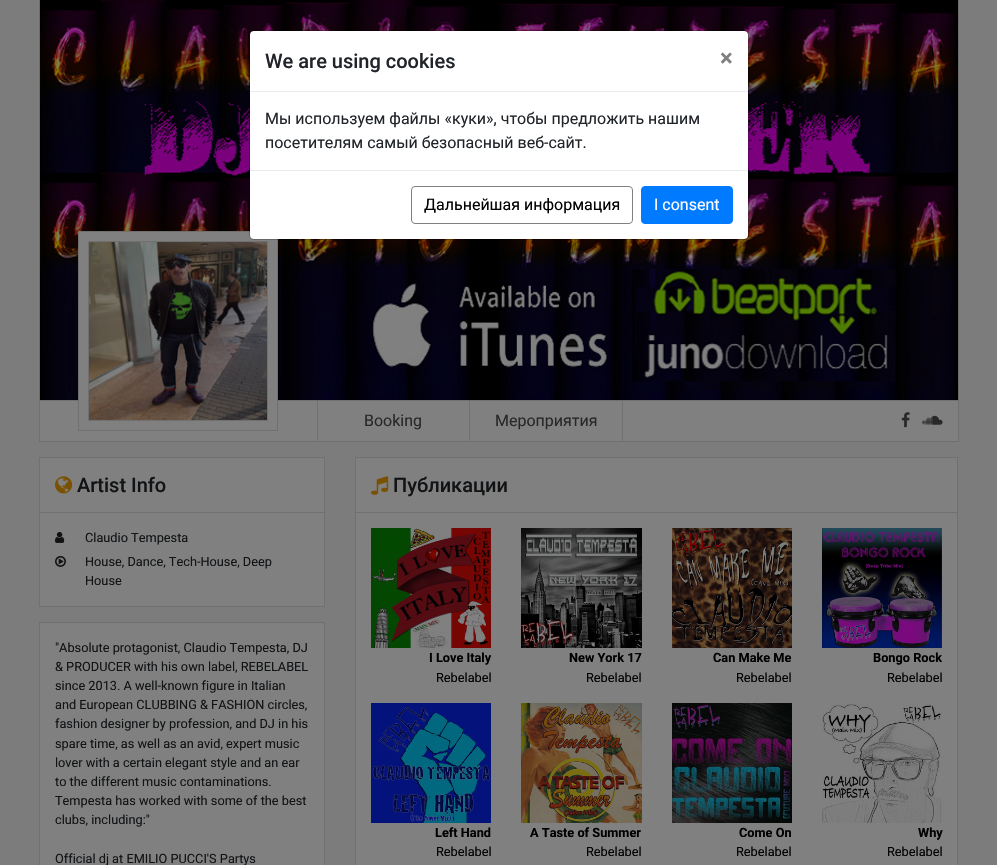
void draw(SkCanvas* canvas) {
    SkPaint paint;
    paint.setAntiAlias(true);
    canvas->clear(0xFF7C7C7C);
    canvas->drawImageRect(SkImages::DeferredFromEncodedData(SkData::MakeFromFileName("img1.png")), SkRect::MakeXYWH(40, 0, 918, 400), SkSamplingOptions());
    paint.setColor(0xFF808080);
    canvas->drawRect(SkRect::MakeXYWH(39.5f, 400.5f, 919, 41), paint);
    paint.setStyle(SkPaint::kStroke_Style);
    paint.setStrokeWidth(1);
    paint.setColor(0xFF707070);
    canvas->drawRect(SkRect::MakeXYWH(39.5f, 400.5f, 919, 41), paint);
    paint.setStyle(SkPaint::kFill_Style);
    paint.setColor(0xFF808080);
    canvas->drawRect(SkRect::MakeXYWH(79, 232, 198, 169), paint);
    paint.setStyle(SkPaint::kStroke_Style);
    paint.setColor(0xFF707070);
    canvas->drawRect(SkRect::MakeXYWH(78.5f, 231.5f, 199, 199), paint);
    paint.setStyle(SkPaint::kFill_Style);
    paint.setColor(0xFFFFFFFF);
    canvas->drawRoundRect(SkRect::MakeXYWH(250, 31, 498, 208), 4, 4, paint);
    paint.setStyle(SkPaint::kStroke_Style);
    paint.setColor(0x33000000);
    canvas->drawRoundRect(SkRect::MakeXYWH(249.5f, 30.5f, 499, 209), 4.5f, 4.5f, paint);
    paint.setStyle(SkPaint::kFill_Style);
    paint.setColor(0xFFE9ECEF);
    canvas->drawRect(SkRect::MakeXYWH(250, 91, 498, 1), paint);
    SkFont font1(fontMgr->matchFamilyStyle("Roboto", SkFontStyle(500, SkFontStyle::kNormal_Width, SkFontStyle::kUpright_Slant)), 20);
    font1.setSubpixel(true);
    paint.setColor(0xFF212529);
    canvas->drawString("We are using cookies", 265, 68, font1, paint);
    SkFont font2(fontMgr->matchFamilyStyle("Roboto", SkFontStyle::Bold()), 24);
    font2.setSubpixel(true);
    paint.setColor(0xFF808080);
    canvas->drawString("×", 720, 66, font2, paint);
    SkFont font3(fontMgr->matchFamilyStyle("Roboto", SkFontStyle::Normal()), 16);
    font3.setSubpixel(true);
    paint.setColor(0xFF212529);
    canvas->drawString("Мы используем файлы «куки», чтобы предложить нашим", 265, 124, font3, paint);
    canvas->drawString("посетителям самый безопасный веб-сайт.", 265, 148, font3, paint);
    paint.setColor(0xFFE9ECEF);
    canvas->drawRect(SkRect::MakeXYWH(250, 170, 498, 1), paint);
    paint.setStyle(SkPaint::kStroke_Style);
    paint.setColor(0xFF808080);
    canvas->drawRoundRect(SkRect::MakeXYWH(411.5f, 186.5f, 221, 37), 3.5f, 3.5f, paint);
    paint.setStyle(SkPaint::kFill_Style);
    paint.setColor(0xFF000000);
    canvas->drawString("Дальнейшая информация", 424, 210, font3, paint);
    paint.setColor(0xFF007BFF);
    canvas->drawRoundRect(SkRect::MakeXYWH(641.5f, 186.5f, 91, 37), 3.5f, 3.5f, paint);
    paint.setStyle(SkPaint::kStroke_Style);
    canvas->drawRoundRect(SkRect::MakeXYWH(641.5f, 186.5f, 91, 37), 3.5f, 3.5f, paint);
    paint.setStyle(SkPaint::kFill_Style);
    paint.setColor(0xFFFFFFFF);
    canvas->drawString("I consent", 654, 210, font3, paint);
    paint.setColor(0xFF6C6C6C);
    canvas->drawRect(SkRect::MakeXYWH(39, 0, 1, 400), paint);
    canvas->drawRect(SkRect::MakeXYWH(958, 0, 1, 400), paint);
    paint.setStyle(SkPaint::kStroke_Style);
    paint.setColor(0xFF707070);
    canvas->drawRect(SkRect::MakeXYWH(88.5f, 241.5f, 179, 179), paint);
    canvas->drawImageRect(SkImages::DeferredFromEncodedData(SkData::MakeFromFileName("img2.png")), SkRect::MakeXYWH(89, 242, 178, 178), SkSamplingOptions());
    paint.setStyle(SkPaint::kFill_Style);
    canvas->drawRect(SkRect::MakeXYWH(469, 401, 1, 40), paint);
    canvas->drawRect(SkRect::MakeXYWH(317, 401, 1, 40), paint);
    paint.setColor(0xFF282828);
    canvas->drawString("Booking", 364, 426, font3, paint);
    paint.setColor(0xFF707070);
    canvas->drawRect(SkRect::MakeXYWH(622, 401, 1, 40), paint);
    paint.setColor(0xFF282828);
    canvas->drawString("Мероприятия", 495, 426, font3, paint);
    canvas->drawImageRect(SkImages::DeferredFromEncodedData(SkData::MakeFromFileName("img3.png")), SkRect::MakeXYWH(901, 412, 9, 16), SkSamplingOptions());
    canvas->drawImageRect(SkImages::DeferredFromEncodedData(SkData::MakeFromFileName("img4.png")), SkRect::MakeXYWH(922, 415, 21, 10), SkSamplingOptions());
    paint.setColor(0xFF808080);
    canvas->drawRect(SkRect::MakeXYWH(39.5f, 457.5f, 285, 149), paint);
    paint.setStyle(SkPaint::kStroke_Style);
    paint.setColor(0xFF707070);
    canvas->drawRect(SkRect::MakeXYWH(39.5f, 457.5f, 285, 149), paint);
    canvas->drawImageRect(SkImages::DeferredFromEncodedData(SkData::MakeFromFileName("img5.png")), SkRect::MakeXYWH(55, 476, 18, 18), SkSamplingOptions());
    paint.setStyle(SkPaint::kFill_Style);
    paint.setColor(0xFF111315);
    canvas->drawString("Artist Info", 77, 492, font1, paint);
    paint.setColor(0xFF707070);
    canvas->drawRect(SkRect::MakeXYWH(40, 512, 284, 1), paint);
    canvas->drawImageRect(SkImages::DeferredFromEncodedData(SkData::MakeFromFileName("img6.png")), SkRect::MakeXYWH(55, 532, 10, 11), SkSamplingOptions());
    SkFont font4(fontMgr->matchFamilyStyle("Roboto", SkFontStyle::Normal()), 12.75f);
    font4.setSubpixel(true);
    paint.setColor(0xFF111315);
    canvas->drawString("Claudio Tempesta", 85, 542, font4, paint);
    canvas->drawImageRect(SkImages::DeferredFromEncodedData(SkData::MakeFromFileName("img7.png")), SkRect::MakeXYWH(55, 555, 11, 12), SkSamplingOptions());
    canvas->drawString("House, Dance, Tech-House, Deep", 85, 566, font4, paint);
    canvas->drawString("House", 85, 585, font4, paint);
    paint.setColor(0xFF808080);
    canvas->drawRect(SkRect::MakeXYWH(39.5f, 622.5f, 285, 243), paint);
    paint.setStyle(SkPaint::kStroke_Style);
    paint.setColor(0xFF707070);
    canvas->drawRect(SkRect::MakeXYWH(39.5f, 622.5f, 285, 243), paint);
    paint.setStyle(SkPaint::kFill_Style);
    paint.setColor(0xFF111315);
    canvas->drawString("\"Absolute protagonist, Claudio Tempesta, DJ", 55, 652, font4, paint);
    canvas->drawString("& PRODUCER with his own label, REBELABEL", 55, 671, font4, paint);
    canvas->drawString("since 2013. A well-known figure in Italian", 55, 690, font4, paint);
    canvas->drawString("and European CLUBBING & FASHION circles,", 55, 709, font4, paint);
    canvas->drawString("fashion designer by profession, and DJ in his", 55, 728, font4, paint);
    canvas->drawString("spare time, as well as an avid, expert music", 55, 748, font4, paint);
    canvas->drawString("lover with a certain elegant style and an ear", 55, 767, font4, paint);
    canvas->drawString("to the different music contaminations.", 55, 786, font4, paint);
    canvas->drawString("Tempesta has worked with some of the best", 55, 805, font4, paint);
    canvas->drawString("clubs, including:\"", 55, 824, font4, paint);
    canvas->drawString("Official dj at EMILIO PUCCI'S Partys", 55, 863, font4, paint);
    paint.setColor(0xFF808080);
    canvas->drawRect(SkRect::MakeXYWH(355.5f, 457.5f, 602, 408), paint);
    paint.setStyle(SkPaint::kStroke_Style);
    paint.setColor(0xFF707070);
    canvas->drawRect(SkRect::MakeXYWH(355.5f, 457.5f, 602, 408), paint);
    canvas->drawImageRect(SkImages::DeferredFromEncodedData(SkData::MakeFromFileName("img8.png")), SkRect::MakeXYWH(371, 476, 18, 19), SkSamplingOptions());
    paint.setStyle(SkPaint::kFill_Style);
    paint.setColor(0xFF111315);
    canvas->drawString("Публикации", 393, 492, font1, paint);
    paint.setColor(0xFF707070);
    canvas->drawRect(SkRect::MakeXYWH(356, 512, 601, 1), paint);
    canvas->drawImageRect(SkImages::DeferredFromEncodedData(SkData::MakeFromFileName("img9.png")), SkRect::MakeXYWH(371, 528, 120, 120), SkSamplingOptions());
    SkFont font5(fontMgr->matchFamilyStyle("Roboto", SkFontStyle::Bold()), 12.75f);
    font5.setSubpixel(true);
    paint.setColor(0xFF000000);
    canvas->drawString("I Love Italy", 429, 662, font5, paint);
    canvas->drawString("Rebelabel", 436, 682, font4, paint);
    canvas->drawImageRect(SkImages::DeferredFromEncodedData(SkData::MakeFromFileName("img10.png")), SkRect::MakeXYWH(521, 528, 121, 120), SkSamplingOptions());
    canvas->drawString("New York 17", 569, 662, font5, paint);
    canvas->drawString("Rebelabel", 586, 682, font4, paint);
    canvas->drawImageRect(SkImages::DeferredFromEncodedData(SkData::MakeFromFileName("img11.png")), SkRect::MakeXYWH(672, 528, 120, 120), SkSamplingOptions());
    canvas->drawString("Can Make Me", 713, 662, font5, paint);
    canvas->drawString("Rebelabel", 736, 682, font4, paint);
    canvas->drawImageRect(SkImages::DeferredFromEncodedData(SkData::MakeFromFileName("img12.png")), SkRect::MakeXYWH(822, 528, 120, 120), SkSamplingOptions());
    canvas->drawString("Bongo Rock", 873, 662, font5, paint);
    canvas->drawString("Rebelabel", 887, 682, font4, paint);
    canvas->drawImageRect(SkImages::DeferredFromEncodedData(SkData::MakeFromFileName("img13.png")), SkRect::MakeXYWH(371, 703, 120, 120), SkSamplingOptions());
    canvas->drawString("Left Hand", 435, 837, font5, paint);
    canvas->drawString("Rebelabel", 436, 856, font4, paint);
    canvas->drawImageRect(SkImages::DeferredFromEncodedData(SkData::MakeFromFileName("img14.png")), SkRect::MakeXYWH(521, 703, 121, 120), SkSamplingOptions());
    canvas->drawString("A Taste of Summer", 530, 837, font5, paint);
    canvas->drawString("Rebelabel", 586, 856, font4, paint);
    canvas->drawImageRect(SkImages::DeferredFromEncodedData(SkData::MakeFromFileName("img15.png")), SkRect::MakeXYWH(672, 703, 120, 120), SkSamplingOptions());
    canvas->drawString("Come On", 739, 837, font5, paint);
    canvas->drawString("Rebelabel", 736, 856, font4, paint);
    canvas->drawImageRect(SkImages::DeferredFromEncodedData(SkData::MakeFromFileName("img16.png")), SkRect::MakeXYWH(822, 704, 120, 119), SkSamplingOptions());
    canvas->drawString("Why", 918, 837, font5, paint);
    canvas->drawString("Rebelabel", 887, 856, font4, paint);
}
